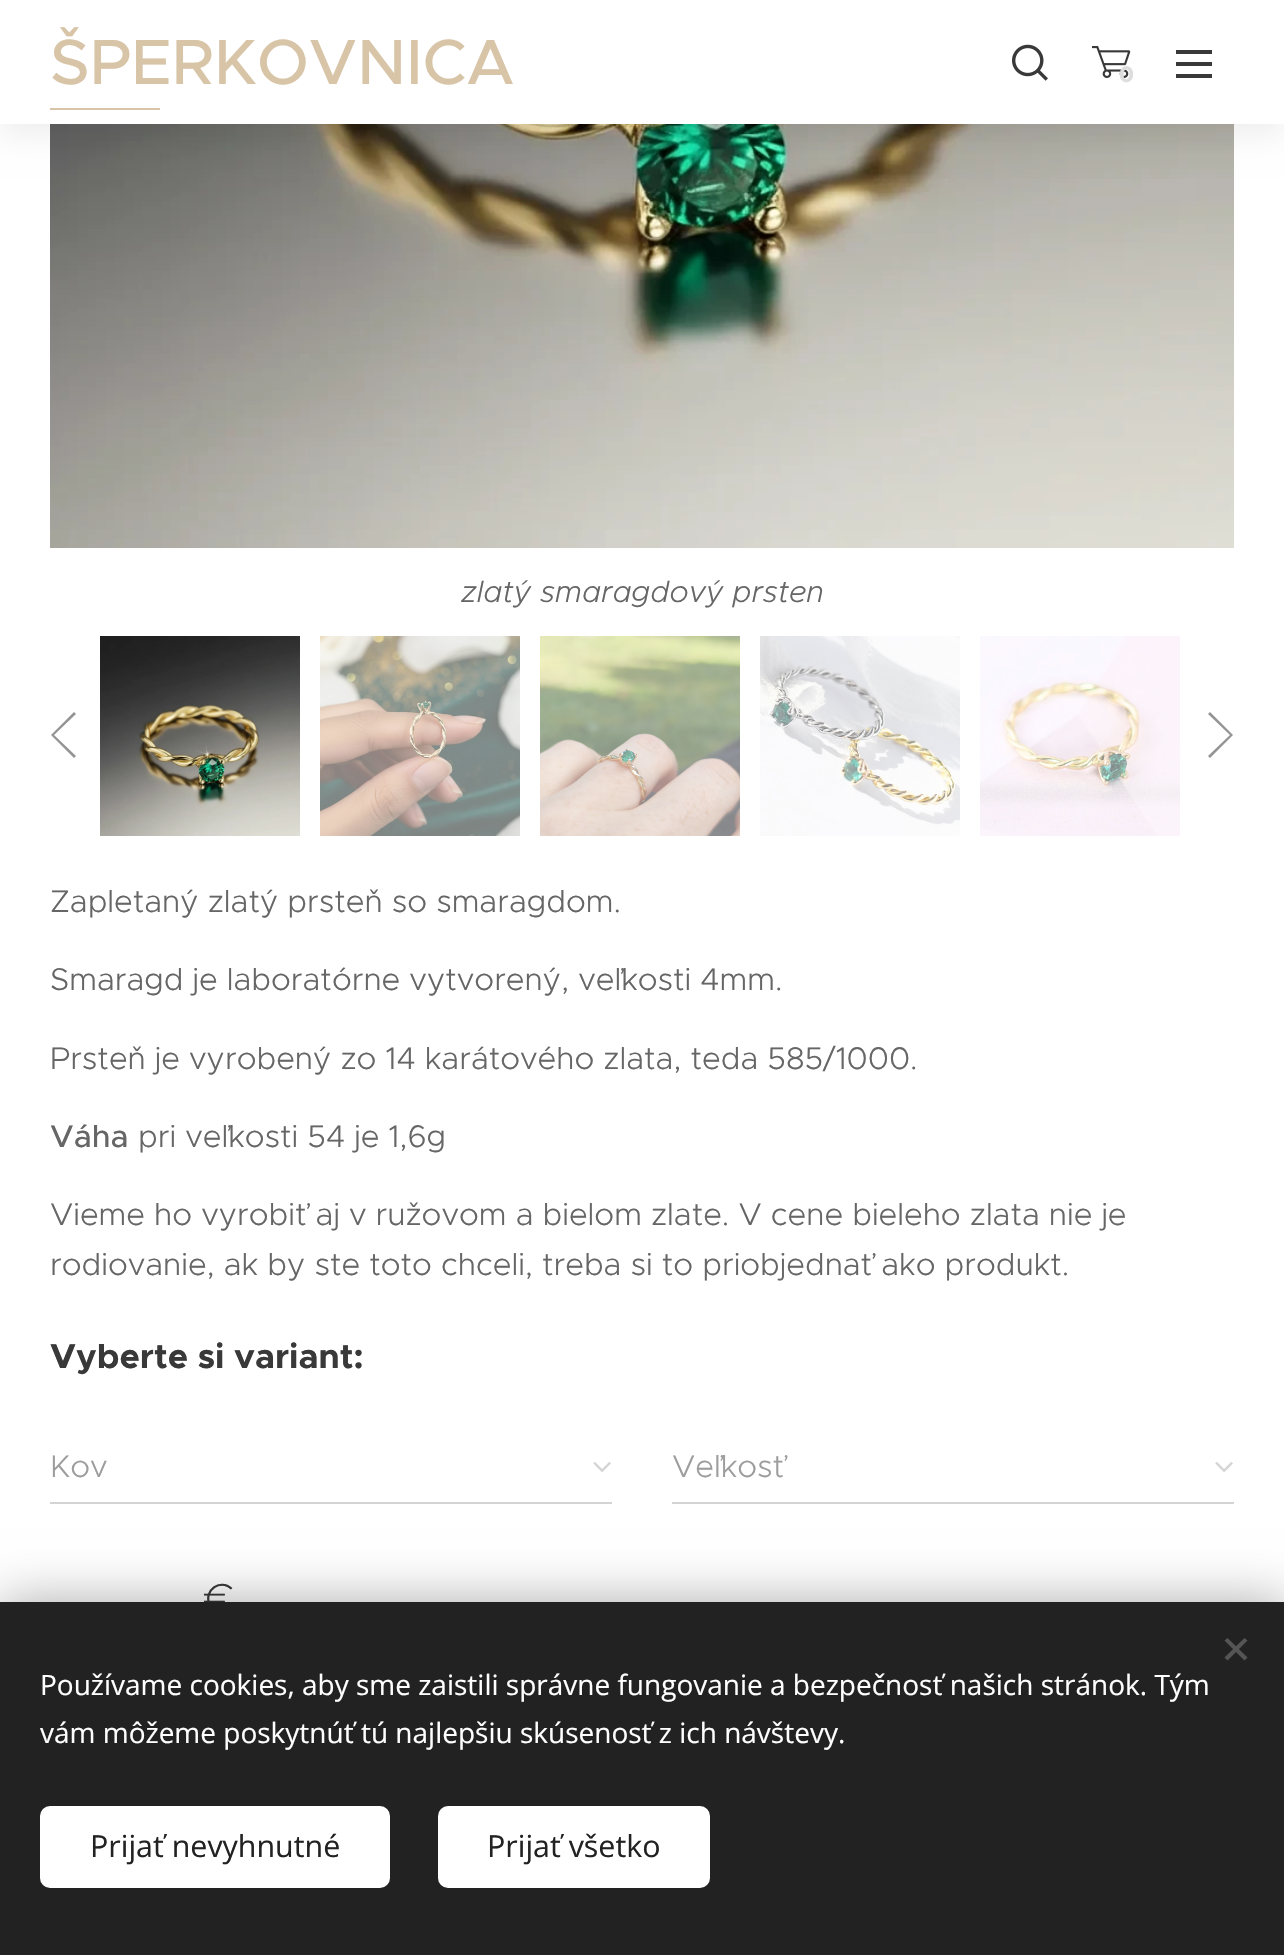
void draw(SkCanvas* canvas) {
    SkPaint paint;
    paint.setAntiAlias(true);
    canvas->clear(0xFFFFFFFF);
    canvas->drawImageRect(SkImages::DeferredFromEncodedData(SkData::MakeFromFileName("img3.png")), SkRect::MakeXYWH(50, 124, 1184, 424), SkSamplingOptions());
    paint.setColor(0x12000000);
    paint.setMaskFilter(SkMaskFilter::MakeBlur(kNormal_SkBlurStyle, 15));
    canvas->drawRect(SkRect::MakeXYWH(0, 10, 1284, 124), paint);
    paint.setMaskFilter(nullptr);
    paint.setColor(0xFFFFFFFF);
    canvas->drawRect(SkRect::MakeXYWH(0, 0, 1284, 124), paint);
    SkFont font1(fontMgr->matchFamilyStyle("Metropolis", SkFontStyle(500, SkFontStyle::kNormal_Width, SkFontStyle::kUpright_Slant)), 64);
    font1.setSubpixel(true);
    paint.setColor(0xFFD8C4A6);
    canvas->drawString("ŠPERKOVNICA", 50, 84, font1, paint);
    canvas->drawRect(SkRect::MakeXYWH(50, 108, 110, 2), paint);
    canvas->drawImageRect(SkImages::DeferredFromEncodedData(SkData::MakeFromFileName("img1.png")), SkRect::MakeXYWH(1012, 44, 36, 37), SkSamplingOptions());
    canvas->drawImageRect(SkImages::DeferredFromEncodedData(SkData::MakeFromFileName("img2.png")), SkRect::MakeXYWH(1092, 46, 39, 32), SkSamplingOptions());
    SkFont font2(fontMgr->matchFamilyStyle("Montserrat", SkFontStyle::Bold()), 22);
    font2.setSubpixel(true);
    paint.setColor(0xFFDDDDDD);
    canvas->drawString("0", 1119, 82, font2, paint);
    paint.setColor(0xFF393939);
    canvas->drawRect(SkRect::MakeXYWH(1176, 62, 36, 4), paint);
    canvas->drawRect(SkRect::MakeXYWH(1176, 50, 36, 4), paint);
    canvas->drawRect(SkRect::MakeXYWH(1176, 74, 36, 4), paint);
    SkFont font3(fontMgr->matchFamilyStyle("Metropolis", SkFontStyle(300, SkFontStyle::kNormal_Width, SkFontStyle::kItalic_Slant)), 30.4f);
    font3.setSubpixel(true);
    paint.setColor(0xFF666666);
    canvas->drawString("zlatý smaragdový prsten", 461, 602, font3, paint);
    paint.setColor(0xFF949494);
    canvas->drawPath(SkPathBuilder().moveTo(74, 758).lineTo(76, 756).lineTo(54, 735).lineTo(76, 714).lineTo(74, 712).lineTo(51, 735).close().detach(), paint);
    canvas->drawImageRect(SkImages::DeferredFromEncodedData(SkData::MakeFromFileName("img4.png")), SkRect::MakeXYWH(100, 636, 200, 200), SkSamplingOptions());
    canvas->drawImageRect(SkImages::DeferredFromEncodedData(SkData::MakeFromFileName("img5.png")), SkRect::MakeXYWH(320, 636, 200, 200), SkSamplingOptions());
    canvas->drawImageRect(SkImages::DeferredFromEncodedData(SkData::MakeFromFileName("img6.png")), SkRect::MakeXYWH(540, 636, 200, 200), SkSamplingOptions());
    canvas->drawImageRect(SkImages::DeferredFromEncodedData(SkData::MakeFromFileName("img7.png")), SkRect::MakeXYWH(760, 636, 200, 200), SkSamplingOptions());
    canvas->drawImageRect(SkImages::DeferredFromEncodedData(SkData::MakeFromFileName("img8.png")), SkRect::MakeXYWH(980, 636, 200, 200), SkSamplingOptions());
    canvas->drawPath(SkPathBuilder().moveTo(1210, 712).lineTo(1208, 714).lineTo(1230, 735).lineTo(1208, 756).lineTo(1210, 758).lineTo(1233, 735).close().detach(), paint);
    SkFont font4(fontMgr->matchFamilyStyle("Metropolis", SkFontStyle(300, SkFontStyle::kNormal_Width, SkFontStyle::kUpright_Slant)), 31.4f);
    font4.setSubpixel(true);
    paint.setColor(0xFF666666);
    canvas->drawString("Zapletaný zlatý prsteň so smaragdom.", 50, 912, font4, paint);
    canvas->drawString("Smaragd je laboratórne vytvorený, veľkosti 4mm.", 50, 990, font4, paint);
    canvas->drawString("Prsteň je vyrobený zo 14 karátového zlata, teda 585/1000.", 50, 1069, font4, paint);
    SkFont font5(fontMgr->matchFamilyStyle("Metropolis", SkFontStyle(500, SkFontStyle::kNormal_Width, SkFontStyle::kUpright_Slant)), 31.4f);
    font5.setSubpixel(true);
    canvas->drawString("Váha", 50, 1147, font5, paint);
    canvas->drawString("pri veľkosti 54 je 1,6g", 138, 1147, font4, paint);
    canvas->drawString("Vieme ho vyrobiť aj v ružovom a bielom zlate. V cene bieleho zlata nie je", 50, 1225, font4, paint);
    canvas->drawString("rodiovanie, ak by ste toto chceli, treba si to priobjednať ako produkt.", 50, 1275, font4, paint);
    SkFont font6(fontMgr->matchFamilyStyle("Metropolis", SkFontStyle::Bold()), 34.5f);
    font6.setSubpixel(true);
    paint.setColor(0xFF393939);
    canvas->drawString("Vyberte si variant:", 50, 1368, font6, paint);
    paint.setColor(0xFF9D9D9D);
    canvas->drawString("Kov", 50, 1477, font4, paint);
    canvas->drawImageRect(SkImages::DeferredFromEncodedData(SkData::MakeFromFileName("img9.png")), SkRect::MakeXYWH(593, 1462, 18, 10), SkSamplingOptions());
    paint.setColor(0xFFD4D4D4);
    canvas->drawRect(SkRect::MakeXYWH(50, 1502, 562, 2), paint);
    paint.setColor(0xFF9D9D9D);
    canvas->drawString("Veľkosť", 672, 1477, font4, paint);
    canvas->drawImageRect(SkImages::DeferredFromEncodedData(SkData::MakeFromFileName("img9.png")), SkRect::MakeXYWH(1215, 1462, 18, 10), SkSamplingOptions());
    paint.setColor(0xFFD4D4D4);
    canvas->drawRect(SkRect::MakeXYWH(672, 1502, 562, 2), paint);
    SkFont font7(fontMgr->matchFamilyStyle("Metropolis", SkFontStyle(200, SkFontStyle::kNormal_Width, SkFontStyle::kUpright_Slant)), 42);
    font7.setSubpixel(true);
    paint.setColor(0xFF393939);
    canvas->drawString("€", 205, 1613, font7, paint);
    paint.setColor(0x54000000);
    paint.setMaskFilter(SkMaskFilter::MakeBlur(kNormal_SkBlurStyle, 25));
    canvas->drawRect(SkRect::MakeXYWH(0, 1602, 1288, 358), paint);
    paint.setMaskFilter(nullptr);
    paint.setColor(0xFF222222);
    canvas->drawRect(SkRect::MakeXYWH(0, 1602, 1284, 353), paint);
    paint.setColor(0xFF555555);
    canvas->drawPath(SkPathBuilder().moveTo(1224.5f, 1657.5f).lineTo(1244.5f, 1638).lineTo(1247.5f, 1640.5f).lineTo(1227.5f, 1660.5f).close().detach(), paint);
    canvas->drawPath(SkPathBuilder().moveTo(1227.5f, 1638).lineTo(1247.5f, 1657.5f).lineTo(1244.5f, 1660.5f).lineTo(1224.5f, 1640.5f).close().detach(), paint);
    SkFont font8(fontMgr->matchFamilyStyle("Open Sans", SkFontStyle::Normal()), 28);
    font8.setSubpixel(true);
    paint.setColor(0xFFFFFFFF);
    canvas->drawString("Používame cookies, aby sme zaistili správne fungovanie a bezpečnosť našich stránok. Tým", 40, 1695, font8, paint);
    canvas->drawString("vám môžeme poskytnúť tú najlepšiu skúsenosť z ich návštevy.", 40, 1743, font8, paint);
    canvas->drawRoundRect(SkRect::MakeXYWH(40, 1806, 350, 82), 10, 10, paint);
    SkFont font9(fontMgr->matchFamilyStyle("Open Sans", SkFontStyle::Normal()), 30.4f);
    font9.setSubpixel(true);
    paint.setColor(0xFF222222);
    canvas->drawString("Prijať nevyhnutné", 90, 1857, font9, paint);
    paint.setColor(0xFFFFFFFF);
    canvas->drawRoundRect(SkRect::MakeXYWH(438, 1806, 272, 82), 10, 10, paint);
    paint.setColor(0xFF222222);
    canvas->drawString("Prijať všetko", 487, 1857, font9, paint);
}
